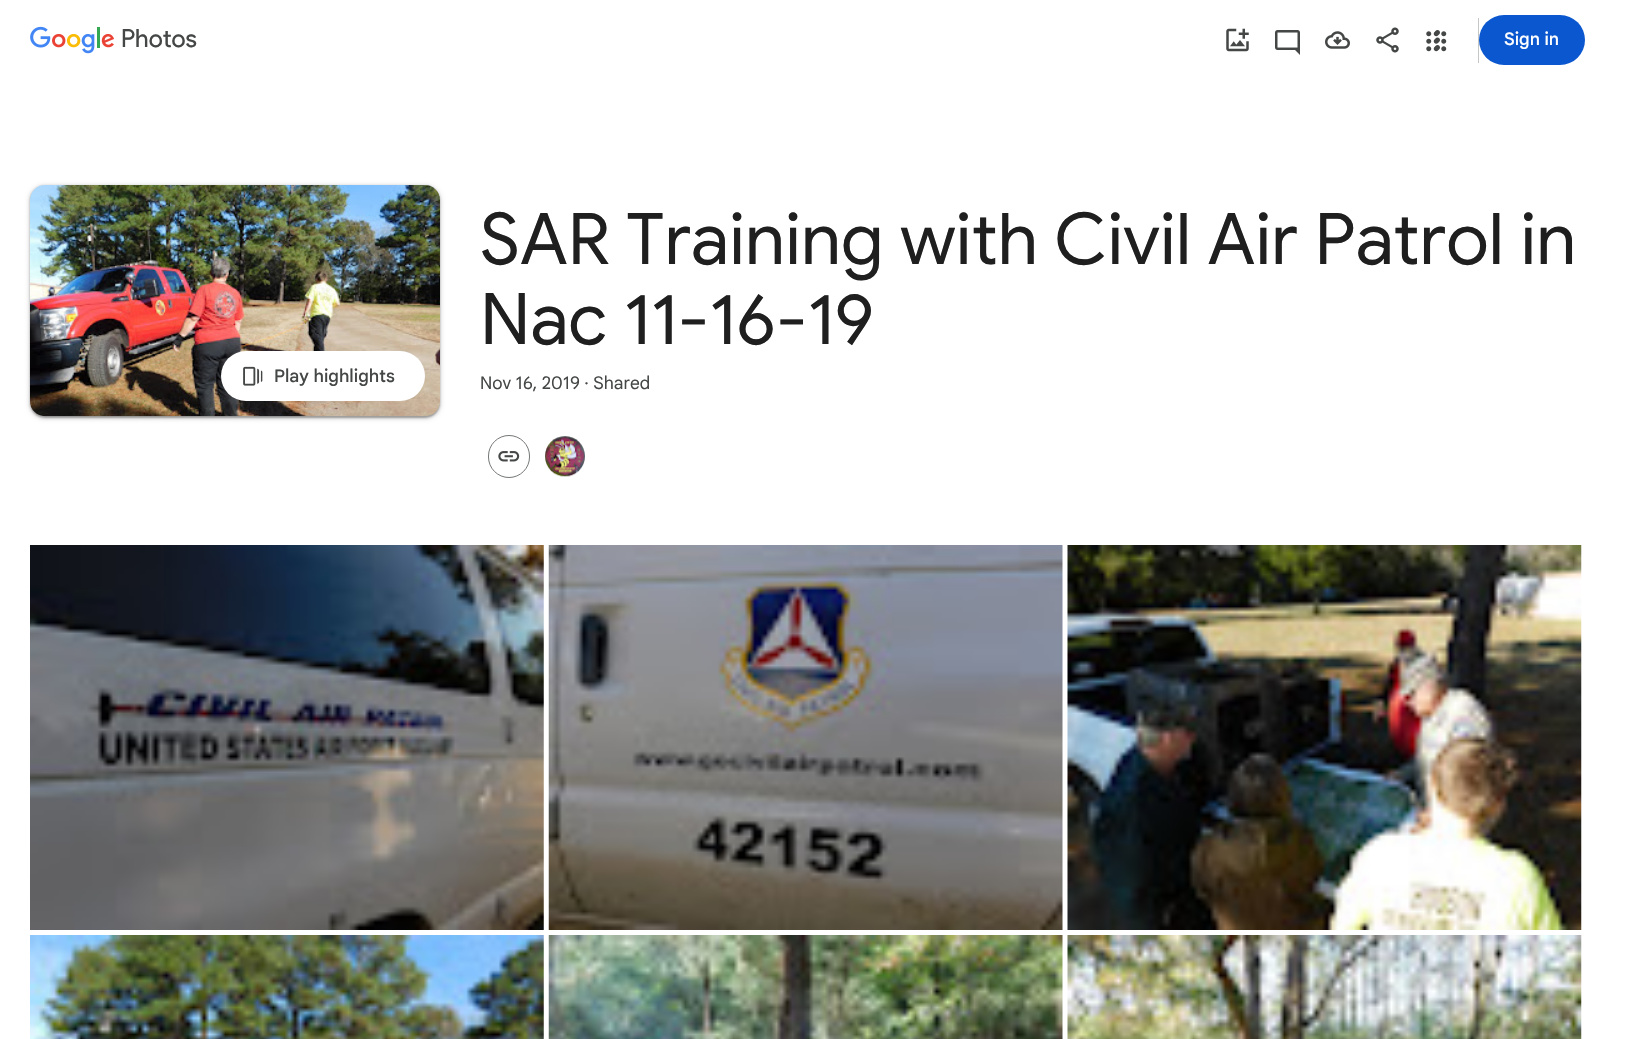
void draw(SkCanvas* canvas) {
    SkPaint paint;
    paint.setAntiAlias(true);
    canvas->clear(0xFFFFFFFF);
    canvas->drawImageRect(SkImages::DeferredFromEncodedData(SkData::MakeFromFileName("img1.png")), SkRect::MakeXYWH(30, 26, 84, 28), SkSamplingOptions());
    SkFont font1(fontMgr->matchFamilyStyle("Product Sans", SkFontStyle::Normal()), 25);
    font1.setSubpixel(true);
    paint.setColor(0xFF444746);
    canvas->drawString("Photos", 121, 47, font1, paint);
    canvas->drawImageRect(SkImages::DeferredFromEncodedData(SkData::MakeFromFileName("img2.png")), SkRect::MakeXYWH(1226, 28, 23, 24), SkSamplingOptions());
    canvas->drawImageRect(SkImages::DeferredFromEncodedData(SkData::MakeFromFileName("img3.png")), SkRect::MakeXYWH(1275, 30, 25, 25), SkSamplingOptions());
    canvas->drawImageRect(SkImages::DeferredFromEncodedData(SkData::MakeFromFileName("img4.png")), SkRect::MakeXYWH(1325, 31, 25, 18), SkSamplingOptions());
    canvas->drawImageRect(SkImages::DeferredFromEncodedData(SkData::MakeFromFileName("img5.png")), SkRect::MakeXYWH(1376, 27, 23, 26), SkSamplingOptions());
    canvas->drawImageRect(SkImages::DeferredFromEncodedData(SkData::MakeFromFileName("img6.png")), SkRect::MakeXYWH(1435, 30, 5, 20), SkSamplingOptions());
    paint.setColor(0xFFC4C7C5);
    canvas->drawRect(SkRect::MakeXYWH(1478, 18, 1, 45), paint);
    paint.setColor(0x26000000);
    paint.setMaskFilter(SkMaskFilter::MakeBlur(kNormal_SkBlurStyle, 2));
    canvas->drawRoundRect(SkRect::MakeXYWH(29, 185, 412, 234), 16, 16, paint);
    paint.setMaskFilter(nullptr);
    paint.setColor(0x4D000000);
    paint.setMaskFilter(SkMaskFilter::MakeBlur(kNormal_SkBlurStyle, 1));
    canvas->drawRoundRect(SkRect::MakeXYWH(30, 186, 410, 232), 15, 15, paint);
    paint.setMaskFilter(nullptr);
    canvas->drawImageRect(SkImages::DeferredFromEncodedData(SkData::MakeFromFileName("img7.png")), SkRect::MakeXYWH(30, 185, 410, 232), SkSamplingOptions());
    paint.setColor(0xFFFFFFFF);
    canvas->drawRoundRect(SkRect::MakeXYWH(221, 351, 204, 50), 25, 25, paint);
    canvas->drawImageRect(SkImages::DeferredFromEncodedData(SkData::MakeFromFileName("img8.png")), SkRect::MakeXYWH(243, 366, 20, 20), SkSamplingOptions());
    SkFont font2(fontMgr->matchFamilyStyle("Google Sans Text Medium", SkFontStyle(500, SkFontStyle::kNormal_Width, SkFontStyle::kUpright_Slant)), 17.5f);
    font2.setSubpixel(true);
    paint.setColor(0xFF444746);
    canvas->drawString("Play highlights", 274, 382, font2, paint);
    SkFont font3(fontMgr->matchFamilyStyle("Google Sans", SkFontStyle::Normal()), 71.25f);
    font3.setSubpixel(true);
    paint.setColor(0xFF1F1F1F);
    canvas->drawString("SAR Training with Civil Air Patrol in", 480, 264, font3, paint);
    canvas->drawString("Nac 11-16-19", 480, 344, font3, paint);
    SkFont font4(fontMgr->matchFamilyStyle("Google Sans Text", SkFontStyle::Normal()), 17.5f);
    font4.setSubpixel(true);
    paint.setColor(0xFF444746);
    canvas->drawString("Nov 16, 2019 · Shared", 480, 389, font4, paint);
    paint.setStyle(SkPaint::kStroke_Style);
    paint.setStrokeWidth(1);
    paint.setColor(0xFF747775);
    canvas->drawRoundRect(SkRect::MakeXYWH(488.5f, 435.5f, 41, 42), 20.5f, 20.5f, paint);
    canvas->drawImageRect(SkImages::DeferredFromEncodedData(SkData::MakeFromFileName("img9.png")), SkRect::MakeXYWH(498, 451, 22, 11), SkSamplingOptions());
    canvas->drawImageRect(SkImages::DeferredFromEncodedData(SkData::MakeFromFileName("img10.png")), SkRect::MakeXYWH(545, 436, 40, 41), SkSamplingOptions());
    canvas->drawImageRect(SkImages::DeferredFromEncodedData(SkData::MakeFromFileName("img11.png")), SkRect::MakeXYWH(30, 545, 514, 385), SkSamplingOptions());
    canvas->drawImageRect(SkImages::DeferredFromEncodedData(SkData::MakeFromFileName("img12.png")), SkRect::MakeXYWH(548, 545, 515, 385), SkSamplingOptions());
    canvas->drawImageRect(SkImages::DeferredFromEncodedData(SkData::MakeFromFileName("img13.png")), SkRect::MakeXYWH(1067, 545, 515, 385), SkSamplingOptions());
    canvas->drawImageRect(SkImages::DeferredFromEncodedData(SkData::MakeFromFileName("img14.png")), SkRect::MakeXYWH(30, 935, 514, 104), SkSamplingOptions());
    canvas->drawImageRect(SkImages::DeferredFromEncodedData(SkData::MakeFromFileName("img15.png")), SkRect::MakeXYWH(548, 935, 515, 104), SkSamplingOptions());
    canvas->drawImageRect(SkImages::DeferredFromEncodedData(SkData::MakeFromFileName("img16.png")), SkRect::MakeXYWH(1067, 935, 515, 104), SkSamplingOptions());
    canvas->drawImageRect(SkImages::DeferredFromEncodedData(SkData::MakeFromFileName("img17.png")), SkRect::MakeXYWH(1426, 31, 21, 21), SkSamplingOptions());
    paint.setStyle(SkPaint::kFill_Style);
    paint.setColor(0xFF0B57D0);
    canvas->drawRoundRect(SkRect::MakeXYWH(1479, 15, 106, 50), 25, 25, paint);
    paint.setColor(0xFFFFFFFF);
    canvas->drawString("Sign in", 1504, 45, font2, paint);
}
